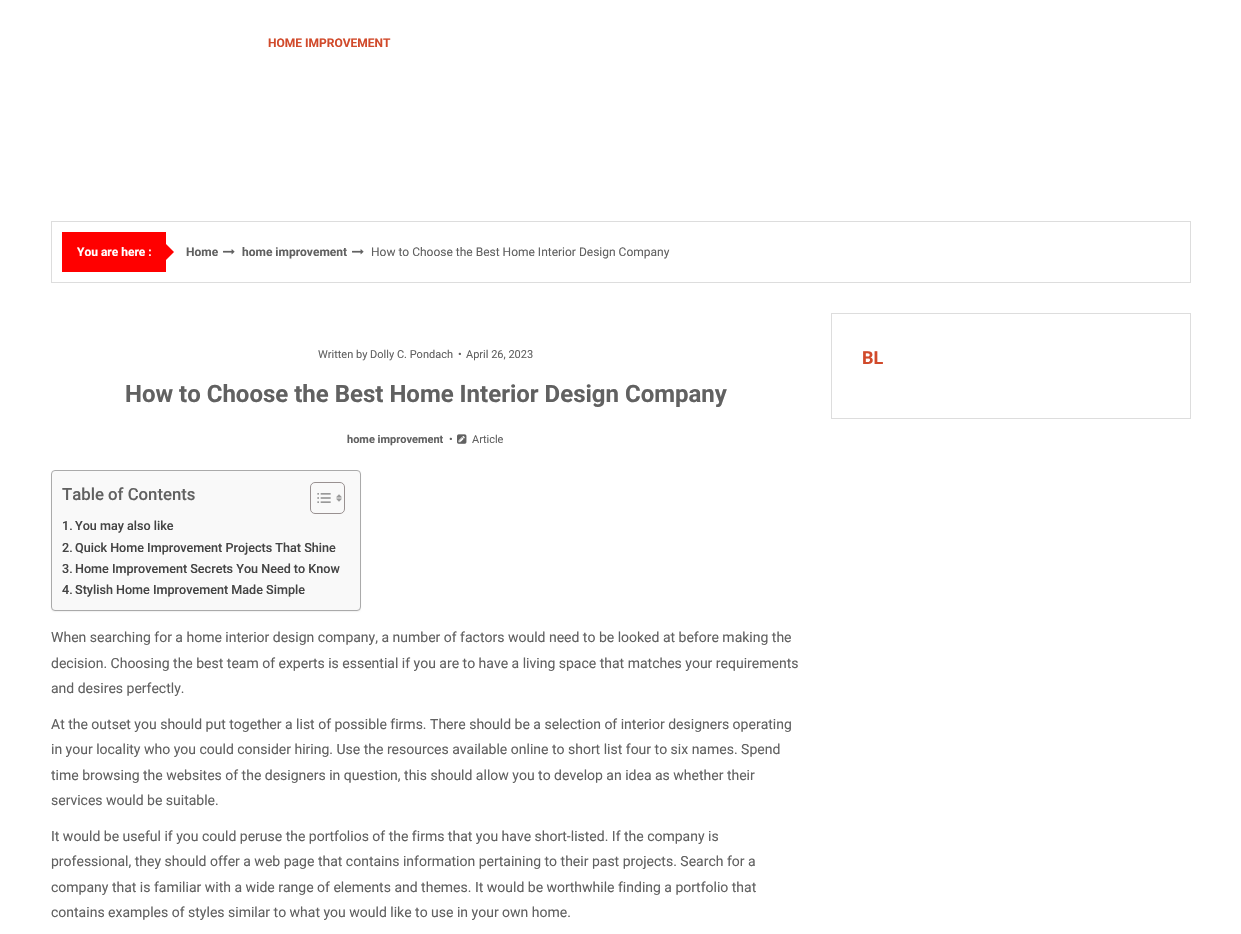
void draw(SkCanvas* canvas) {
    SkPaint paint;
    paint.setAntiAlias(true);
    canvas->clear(0xFFFFFFFF);
    SkFont font1(fontMgr->matchFamilyStyle("Roboto", SkFontStyle::Bold()), 12);
    font1.setSubpixel(true);
    paint.setColor(0xFFD14A2B);
    canvas->drawString("HOME IMPROVEMENT", 268, 47, font1, paint);
    paint.setStyle(SkPaint::kStroke_Style);
    paint.setStrokeWidth(1);
    paint.setColor(0xFFDDDDDD);
    canvas->drawRect(SkRect::MakeXYWH(51.5f, 221.5f, 1139, 61), paint);
    paint.setStyle(SkPaint::kFill_Style);
    paint.setColor(0xFFFF0000);
    canvas->drawRect(SkRect::MakeXYWH(62, 232, 104, 40), paint);
    paint.setColor(0xFFFFFFFF);
    canvas->drawString("You are here :", 77, 256, font1, paint);
    paint.setColor(0xFFFF0000);
    canvas->drawPath(SkPathBuilder().moveTo(164, 262).lineTo(164, 242).lineTo(174, 252).close().detach(), paint);
    paint.setColor(0xFF616161);
    canvas->drawString("Home", 186, 256, font1, paint);
    canvas->drawImageRect(SkImages::DeferredFromEncodedData(SkData::MakeFromFileName("img1.png")), SkRect::MakeXYWH(223, 249, 12, 6), SkSamplingOptions());
    canvas->drawString("home improvement", 242, 256, font1, paint);
    canvas->drawImageRect(SkImages::DeferredFromEncodedData(SkData::MakeFromFileName("img1.png")), SkRect::MakeXYWH(352, 249, 12, 6), SkSamplingOptions());
    SkFont font2(fontMgr->matchFamilyStyle("Roboto", SkFontStyle::Normal()), 12);
    font2.setSubpixel(true);
    canvas->drawString("How to Choose the Best Home Interior Design Company", 371, 256, font2, paint);
    SkFont font3(fontMgr->matchFamilyStyle("Roboto", SkFontStyle::Normal()), 11);
    font3.setSubpixel(true);
    canvas->drawString("Written by Dolly C. Pondach", 318, 358, font3, paint);
    canvas->drawString("•", 458, 358, font3, paint);
    canvas->drawString("April 26, 2023", 466, 358, font3, paint);
    SkFont font4(fontMgr->matchFamilyStyle("Roboto", SkFontStyle::Bold()), 24);
    font4.setSubpixel(true);
    canvas->drawString("How to Choose the Best Home Interior Design Company", 125, 402, font4, paint);
    SkFont font5(fontMgr->matchFamilyStyle("Roboto", SkFontStyle::Bold()), 11);
    font5.setSubpixel(true);
    canvas->drawString("home improvement", 347, 443, font5, paint);
    canvas->drawString("•", 449, 443, font3, paint);
    canvas->drawImageRect(SkImages::DeferredFromEncodedData(SkData::MakeFromFileName("img2.png")), SkRect::MakeXYWH(457, 434, 10, 10), SkSamplingOptions());
    canvas->drawString("Article", 472, 443, font3, paint);
    paint.setColor(0x0D000000);
    paint.setMaskFilter(SkMaskFilter::MakeBlur(kNormal_SkBlurStyle, 0.5f));
    canvas->drawRoundRect(SkRect::MakeXYWH(51, 471, 310, 141), 4, 4, paint);
    paint.setMaskFilter(nullptr);
    paint.setColor(0xFFF9F9F9);
    canvas->drawRoundRect(SkRect::MakeXYWH(51.5f, 470.5f, 309, 140), 3.5f, 3.5f, paint);
    paint.setStyle(SkPaint::kStroke_Style);
    paint.setColor(0xFFAAAAAA);
    canvas->drawRoundRect(SkRect::MakeXYWH(51.5f, 470.5f, 309, 140), 3.5f, 3.5f, paint);
    SkFont font6(fontMgr->matchFamilyStyle("Roboto", SkFontStyle(500, SkFontStyle::kNormal_Width, SkFontStyle::kUpright_Slant)), 16.75f);
    font6.setSubpixel(true);
    paint.setStyle(SkPaint::kFill_Style);
    paint.setColor(0xFF616161);
    canvas->drawString("Table of Contents", 62, 500, font6, paint);
    paint.setStyle(SkPaint::kStroke_Style);
    paint.setColor(0xFF999191);
    canvas->drawRoundRect(SkRect::MakeXYWH(310.5f, 482.5f, 34, 31), 4.5f, 4.5f, paint);
    canvas->drawImageRect(SkImages::DeferredFromEncodedData(SkData::MakeFromFileName("img3.png")), SkRect::MakeXYWH(317, 493, 14, 10), SkSamplingOptions());
    canvas->drawImageRect(SkImages::DeferredFromEncodedData(SkData::MakeFromFileName("img4.png")), SkRect::MakeXYWH(336, 494, 6, 8), SkSamplingOptions());
    SkFont font7(fontMgr->matchFamilyStyle("Roboto", SkFontStyle(500, SkFontStyle::kNormal_Width, SkFontStyle::kUpright_Slant)), 12.6f);
    font7.setSubpixel(true);
    paint.setStyle(SkPaint::kFill_Style);
    paint.setColor(0xFF444444);
    canvas->drawString("1.", 62, 530, font7, paint);
    canvas->drawString("You may also like", 75, 530, font7, paint);
    canvas->drawString("2.", 62, 552, font7, paint);
    canvas->drawString("Quick Home Improvement Projects That Shine", 75, 552, font7, paint);
    canvas->drawString("3.", 62, 573, font7, paint);
    canvas->drawString("Home Improvement Secrets You Need to Know", 75, 573, font7, paint);
    canvas->drawString("4.", 62, 594, font7, paint);
    canvas->drawString("Stylish Home Improvement Made Simple", 75, 594, font7, paint);
    SkFont font8(fontMgr->matchFamilyStyle("Roboto", SkFontStyle::Normal()), 14);
    font8.setSubpixel(true);
    paint.setColor(0xFF616161);
    canvas->drawString("When searching for a home interior design company, a number of factors would need to be looked at before making the", 51, 642, font8, paint);
    canvas->drawString("decision. Choosing the best team of experts is essential if you are to have a living space that matches your requirements", 51, 668, font8, paint);
    canvas->drawString("and desires perfectly.", 51, 693, font8, paint);
    canvas->drawString("At the outset you should put together a list of possible firms. There should be a selection of interior designers operating", 51, 729, font8, paint);
    canvas->drawString("in your locality who you could consider hiring. Use the resources available online to short list four to six names. Spend", 51, 754, font8, paint);
    canvas->drawString("time browsing the websites of the designers in question, this should allow you to develop an idea as whether their", 51, 780, font8, paint);
    canvas->drawString("services would be suitable.", 51, 805, font8, paint);
    canvas->drawString("It would be useful if you could peruse the portfolios of the firms that you have short-listed. If the company is", 51, 841, font8, paint);
    canvas->drawString("professional, they should offer a web page that contains information pertaining to their past projects. Search for a", 51, 866, font8, paint);
    canvas->drawString("company that is familiar with a wide range of elements and themes. It would be worthwhile finding a portfolio that", 51, 892, font8, paint);
    canvas->drawString("contains examples of styles similar to what you would like to use in your own home.", 51, 917, font8, paint);
    paint.setStyle(SkPaint::kStroke_Style);
    paint.setColor(0xFFDDDDDD);
    canvas->drawRect(SkRect::MakeXYWH(831.5f, 313.5f, 359, 105), paint);
    SkFont font9(fontMgr->matchFamilyStyle("Roboto", SkFontStyle::Bold()), 18);
    font9.setSubpixel(true);
    paint.setStyle(SkPaint::kFill_Style);
    paint.setColor(0xFFD14A2B);
    canvas->drawString("BL", 862, 364, font9, paint);
}
